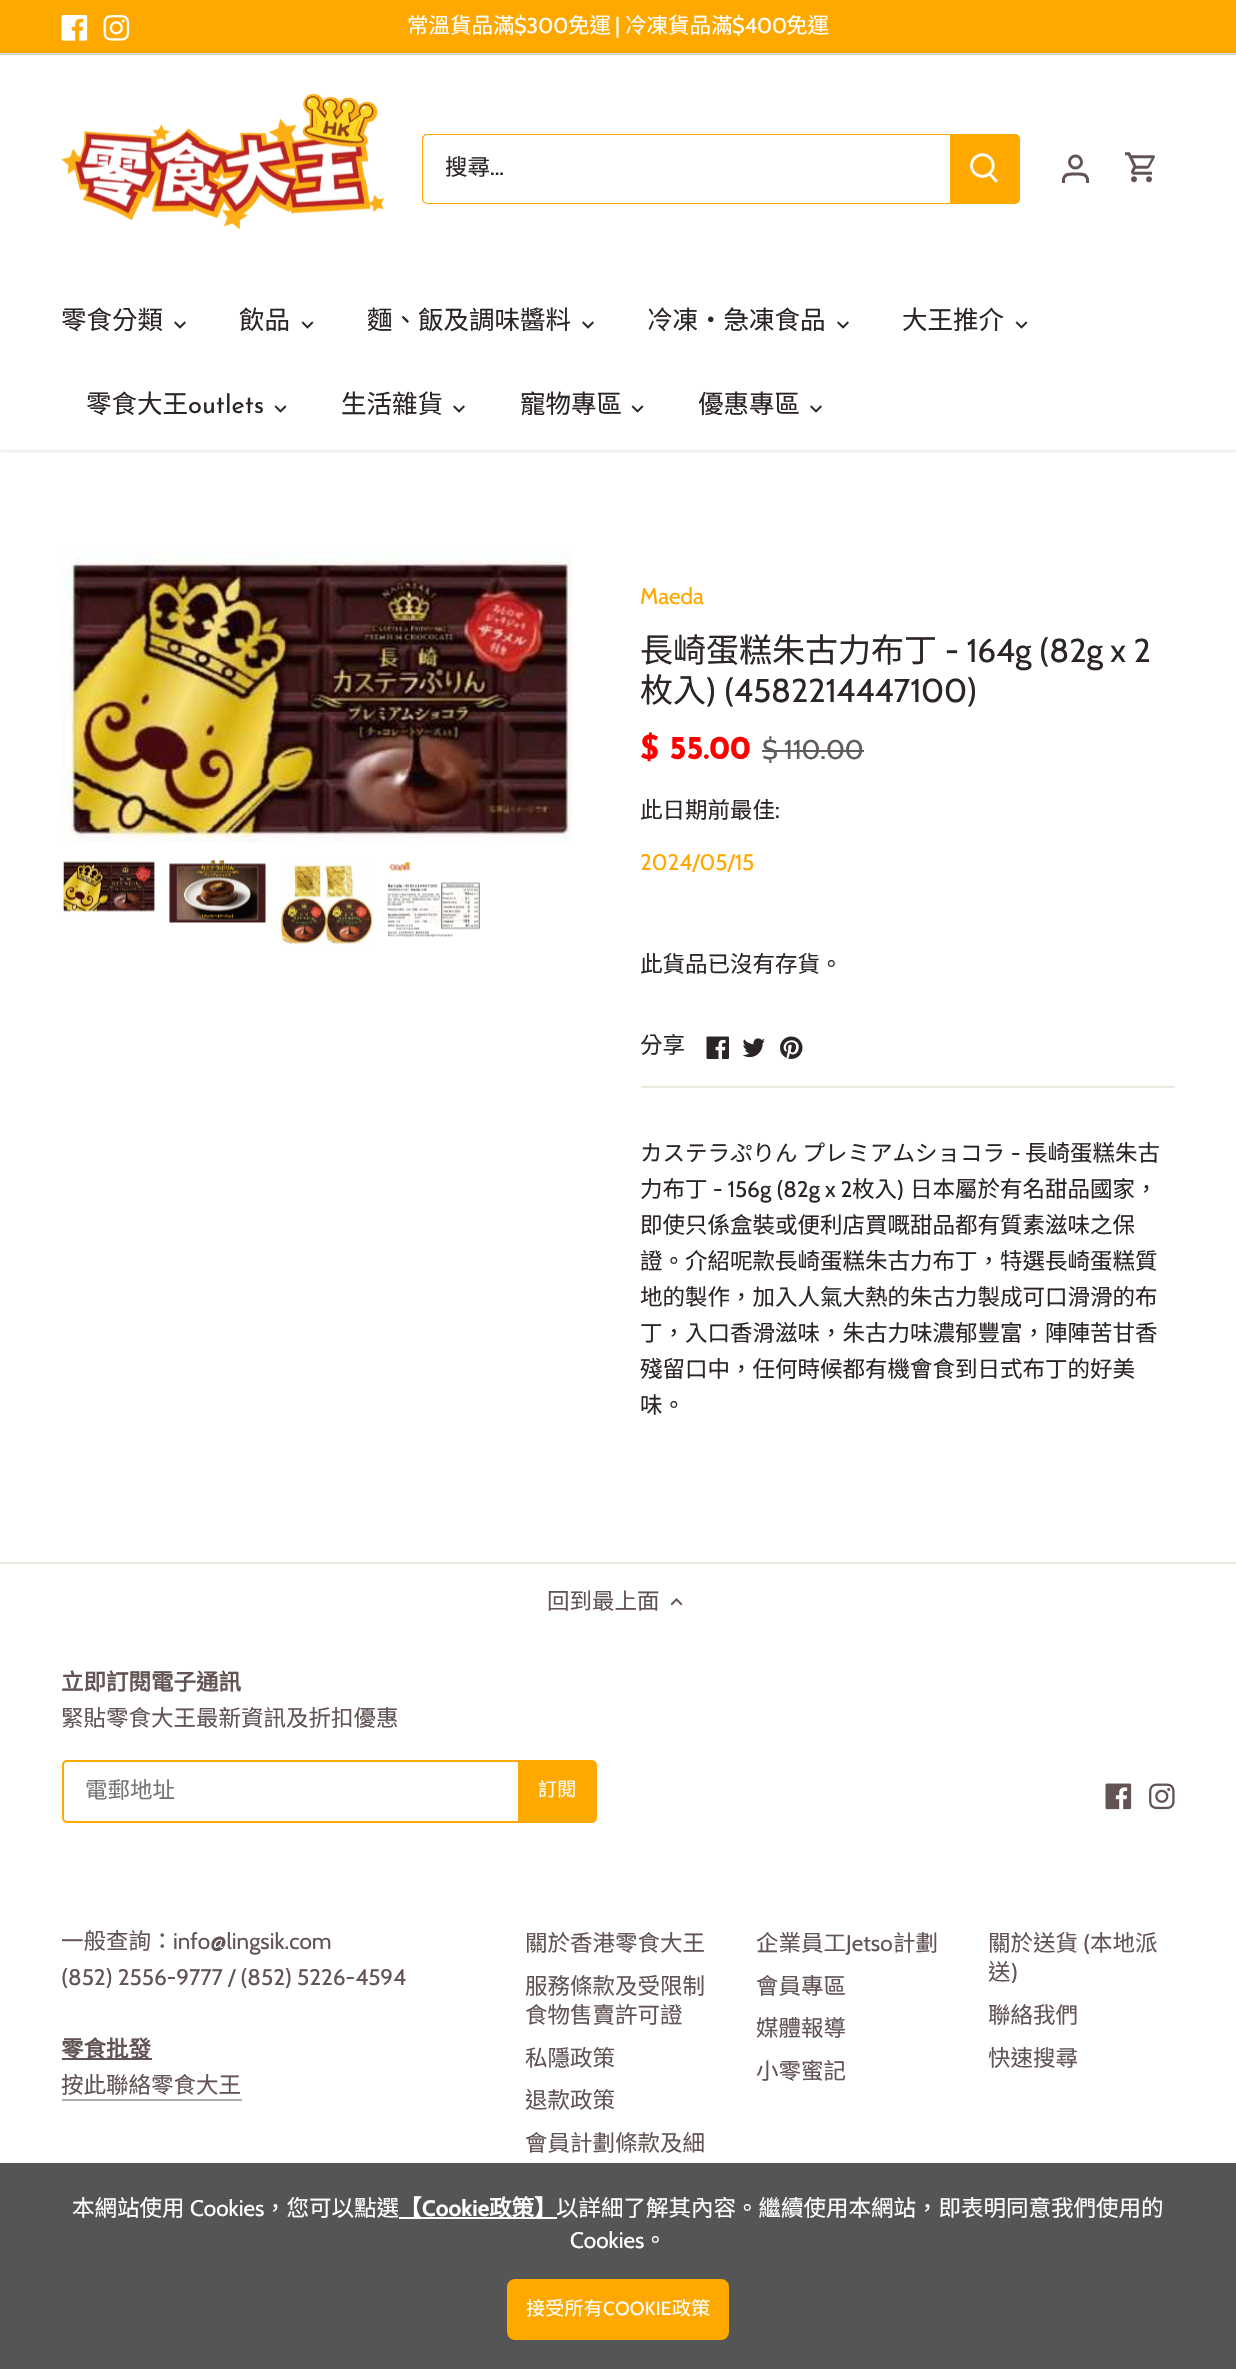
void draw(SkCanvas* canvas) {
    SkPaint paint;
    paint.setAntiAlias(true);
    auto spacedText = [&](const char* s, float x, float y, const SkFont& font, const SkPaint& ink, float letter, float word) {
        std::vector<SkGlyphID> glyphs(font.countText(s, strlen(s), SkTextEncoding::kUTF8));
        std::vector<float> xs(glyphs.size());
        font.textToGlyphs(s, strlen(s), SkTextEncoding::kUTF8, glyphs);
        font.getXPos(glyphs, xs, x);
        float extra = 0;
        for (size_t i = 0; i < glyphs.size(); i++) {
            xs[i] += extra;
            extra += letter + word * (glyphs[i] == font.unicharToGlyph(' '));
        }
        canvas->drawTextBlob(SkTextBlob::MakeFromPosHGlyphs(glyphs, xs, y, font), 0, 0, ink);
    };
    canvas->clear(0xFFFFFFFF);
    canvas->save();
    canvas->clipRect(SkRect::MakeXYWH(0, 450, 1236, 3));
    paint.setColor(0x14000000);
    paint.setMaskFilter(SkMaskFilter::MakeBlur(kNormal_SkBlurStyle, 2));
    canvas->drawRect(SkRect::MakeXYWH(-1, 53, 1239, 399), paint);
    paint.setMaskFilter(nullptr);
    canvas->restore();
    paint.setColor(0xFFFFA800);
    canvas->drawRect(SkRect::MakeXYWH(0, 0, 1236, 53), paint);
    paint.setColor(0xFFD8D4D4);
    canvas->drawRect(SkRect::MakeXYWH(0, 53, 1236, 2), paint);
    canvas->drawImageRect(SkImages::DeferredFromEncodedData(SkData::MakeFromFileName("img1.png")), SkRect::MakeXYWH(61, 15, 27, 26), SkSamplingOptions());
    canvas->drawImageRect(SkImages::DeferredFromEncodedData(SkData::MakeFromFileName("img2.png")), SkRect::MakeXYWH(103, 15, 27, 26), SkSamplingOptions());
    SkFont font1(fontMgr->matchFamilyStyle("Noto Sans CJK TC", SkFontStyle::Normal()), 21.5f);
    font1.setSubpixel(true);
    paint.setColor(0xFFFFFFFF);
    canvas->drawString("常溫貨品滿", 407, 33, font1, paint);
    SkFont font2(fontMgr->matchFamilyStyle("Cabin", SkFontStyle::Normal()), 21.5f);
    font2.setSubpixel(true);
    canvas->drawString("$300", 514, 33, font2, paint);
    canvas->drawString("免運", 568, 33, font1, paint);
    canvas->drawString("|", 615, 33, font2, paint);
    canvas->drawString("冷凍貨品滿", 625, 33, font1, paint);
    canvas->drawString("$400", 732, 33, font2, paint);
    canvas->drawString("免運", 786, 33, font1, paint);
    canvas->drawImageRect(SkImages::DeferredFromEncodedData(SkData::MakeFromFileName("img3.png")), SkRect::MakeXYWH(61, 93, 323, 137), SkSamplingOptions());
    paint.setStyle(SkPaint::kStroke_Style);
    paint.setStrokeWidth(2);
    paint.setColor(0xFFFFA800);
    canvas->drawRoundRect(SkRect::MakeXYWH(423, 135, 596, 68), 4, 4, paint);
    paint.setStyle(SkPaint::kFill_Style);
    paint.setColor(0xFFFFFFFF);
    canvas->drawPath(SkPathBuilder().moveTo(428, 135).lineTo(951, 135).lineTo(951, 203).lineTo(428, 203).cubicTo(425, 203, 423, 201, 423, 198).lineTo(423, 140).cubicTo(423, 137, 425, 135, 428, 135).close().detach(), paint);
    SkFont font3(fontMgr->matchFamilyStyle("Noto Sans CJK TC", SkFontStyle::Normal()), 22.5f);
    font3.setSubpixel(true);
    paint.setColor(0xFF2C2528);
    canvas->drawString("搜尋", 445, 175, font3, paint);
    SkFont font4(fontMgr->matchFamilyStyle("Cabin", SkFontStyle::Normal()), 22.5f);
    font4.setSubpixel(true);
    canvas->drawString("...", 490, 175, font4, paint);
    paint.setColor(0xFFFFA800);
    canvas->drawPath(SkPathBuilder().moveTo(950, 135).lineTo(1016, 135).cubicTo(1017.5f, 135, 1019, 136.5f, 1019, 138).lineTo(1019, 200).cubicTo(1019, 201.5f, 1017.5f, 203, 1016, 203).lineTo(950, 203).close().detach(), paint);
    canvas->drawImageRect(SkImages::DeferredFromEncodedData(SkData::MakeFromFileName("img4.png")), SkRect::MakeXYWH(970, 153, 28, 30), SkSamplingOptions());
    paint.setStyle(SkPaint::kStroke_Style);
    paint.setStrokeWidth(3);
    paint.setColor(0xFF625454);
    canvas->drawCircle(1075.5f, 162, 6, paint);
    canvas->drawPath(SkPathBuilder().moveTo(1087.5f, 183).lineTo(1087.5f, 179).cubicTo(1086, 173, 1080, 174, 1075.5f, 174).cubicTo(1071, 174, 1065, 173, 1063.5f, 179).lineTo(1063.5f, 183).detach(), paint);
    canvas->drawImageRect(SkImages::DeferredFromEncodedData(SkData::MakeFromFileName("img5.png")), SkRect::MakeXYWH(1125, 152, 30, 31), SkSamplingOptions());
    SkFont font5(fontMgr->matchFamilyStyle("Noto Sans CJK TC", SkFontStyle::Normal()), 25.5f);
    font5.setSubpixel(true);
    paint.setStyle(SkPaint::kFill_Style);
    paint.setColor(0xFF2C2528);
    canvas->drawString("零食分類", 61, 329, font5, paint);
    canvas->drawImageRect(SkImages::DeferredFromEncodedData(SkData::MakeFromFileName("img6.png")), SkRect::MakeXYWH(174, 321, 12, 8), SkSamplingOptions());
    canvas->drawString("飲品", 239, 329, font5, paint);
    canvas->drawImageRect(SkImages::DeferredFromEncodedData(SkData::MakeFromFileName("img7.png")), SkRect::MakeXYWH(301, 321, 13, 8), SkSamplingOptions());
    canvas->drawString("麵、飯及調味醬料", 367, 329, font5, paint);
    canvas->drawImageRect(SkImages::DeferredFromEncodedData(SkData::MakeFromFileName("img6.png")), SkRect::MakeXYWH(582, 321, 12, 8), SkSamplingOptions());
    canvas->drawString("冷凍‧急凍食品", 647, 329, font5, paint);
    canvas->drawImageRect(SkImages::DeferredFromEncodedData(SkData::MakeFromFileName("img6.png")), SkRect::MakeXYWH(837, 321, 12, 8), SkSamplingOptions());
    canvas->drawString("大王推介", 902, 329, font5, paint);
    canvas->drawImageRect(SkImages::DeferredFromEncodedData(SkData::MakeFromFileName("img7.png")), SkRect::MakeXYWH(1015, 321, 13, 8), SkSamplingOptions());
    canvas->drawString("零食大王", 86, 413, font5, paint);
    SkFont font6(fontMgr->matchFamilyStyle("Josefin Sans", SkFontStyle::Normal()), 25.5f);
    font6.setSubpixel(true);
    canvas->drawString("outlets", 188, 413, font6, paint);
    canvas->drawImageRect(SkImages::DeferredFromEncodedData(SkData::MakeFromFileName("img7.png")), SkRect::MakeXYWH(274, 405, 13, 8), SkSamplingOptions());
    canvas->drawString("生活雜貨", 341, 413, font5, paint);
    canvas->drawImageRect(SkImages::DeferredFromEncodedData(SkData::MakeFromFileName("img6.png")), SkRect::MakeXYWH(453, 405, 12, 8), SkSamplingOptions());
    canvas->drawString("寵物專區", 520, 413, font5, paint);
    canvas->drawImageRect(SkImages::DeferredFromEncodedData(SkData::MakeFromFileName("img7.png")), SkRect::MakeXYWH(631, 405, 13, 8), SkSamplingOptions());
    canvas->drawString("優惠專區", 698, 413, font5, paint);
    canvas->drawImageRect(SkImages::DeferredFromEncodedData(SkData::MakeFromFileName("img6.png")), SkRect::MakeXYWH(810, 405, 12, 8), SkSamplingOptions());
    canvas->drawImageRect(SkImages::DeferredFromEncodedData(SkData::MakeFromFileName("img8.png")), SkRect::MakeXYWH(61, 551, 511, 292), SkSamplingOptions());
    canvas->drawImageRect(SkImages::DeferredFromEncodedData(SkData::MakeFromFileName("img9.png")), SkRect::MakeXYWH(61, 860, 95, 53), SkSamplingOptions());
    canvas->drawImageRect(SkImages::DeferredFromEncodedData(SkData::MakeFromFileName("img10.png")), SkRect::MakeXYWH(169, 860, 97, 63), SkSamplingOptions());
    canvas->drawImageRect(SkImages::DeferredFromEncodedData(SkData::MakeFromFileName("img11.png")), SkRect::MakeXYWH(280, 863, 94, 83), SkSamplingOptions());
    canvas->drawImageRect(SkImages::DeferredFromEncodedData(SkData::MakeFromFileName("img12.png")), SkRect::MakeXYWH(387, 861, 93, 77), SkSamplingOptions());
    paint.setColor(0xFFFFA800);
    canvas->drawString("Maeda", 640, 604, font4, paint);
    SkFont font7(fontMgr->matchFamilyStyle("Noto Sans CJK TC", SkFontStyle::Normal()), 33);
    font7.setSubpixel(true);
    paint.setColor(0xFF2C2528);
    canvas->drawString("長崎蛋糕朱古力布丁", 640, 662, font7, paint);
    SkFont font8(fontMgr->matchFamilyStyle("Cabin", SkFontStyle::Normal()), 33);
    font8.setSubpixel(true);
    canvas->drawString("- 164g (82g x 2", 945, 662, font8, paint);
    canvas->drawString("枚入", 640, 702, font7, paint);
    canvas->drawString(") (4582214447100)", 706, 702, font8, paint);
    SkFont font9(fontMgr->matchFamilyStyle("Josefin Sans", SkFontStyle::Bold()), 33);
    font9.setSubpixel(true);
    paint.setColor(0xFFFF0000);
    canvas->drawString("$ 55.00", 640, 759, font9, paint);
    SkFont font10(fontMgr->matchFamilyStyle("Cabin", SkFontStyle::Normal()), 27);
    font10.setSubpixel(true);
    paint.setColor(0xFF615C5E);
    canvas->drawString("$ 110.00", 762, 759, font10, paint);
    canvas->drawRect(SkRect::MakeXYWH(762, 750, 102, 2), paint);
    paint.setColor(0xFF2C2528);
    canvas->drawString("此日期前最佳", 640, 818, font3, paint);
    canvas->drawString(":", 775, 818, font4, paint);
    paint.setColor(0xFFFFA800);
    canvas->drawString("2024/05/15", 640, 870, font4, paint);
    paint.setColor(0xFF2C2528);
    canvas->drawString("此貨品已沒有存貨。", 640, 972, font3, paint);
    canvas->drawString("分享", 640, 1053, font3, paint);
    canvas->drawImageRect(SkImages::DeferredFromEncodedData(SkData::MakeFromFileName("img13.png")), SkRect::MakeXYWH(706, 1036, 23, 23), SkSamplingOptions());
    canvas->drawImageRect(SkImages::DeferredFromEncodedData(SkData::MakeFromFileName("img14.png")), SkRect::MakeXYWH(742, 1038, 23, 20), SkSamplingOptions());
    canvas->drawImageRect(SkImages::DeferredFromEncodedData(SkData::MakeFromFileName("img15.png")), SkRect::MakeXYWH(780, 1036, 23, 23), SkSamplingOptions());
    paint.setColor(0xFFEDE8DD);
    canvas->drawRect(SkRect::MakeXYWH(641, 1086, 534, 2), paint);
    paint.setColor(0xFF2C2528);
    canvas->drawString("カステラぷりん プレミアムショコラ", 640, 1161, font3, paint);
    canvas->drawString("-", 1011, 1161, font4, paint);
    canvas->drawString("長崎蛋糕朱古", 1025, 1161, font3, paint);
    canvas->drawString("力布丁", 640, 1197, font3, paint);
    canvas->drawString("- 156g (82g x 2", 713, 1197, font4, paint);
    canvas->drawString("枚入", 852, 1197, font3, paint);
    canvas->drawString(")", 897, 1197, font4, paint);
    canvas->drawString("日本屬於有名甜品國家，", 910, 1197, font3, paint);
    canvas->drawString("即使只係盒裝或便利店買嘅甜品都有質素滋味之保", 640, 1233, font3, paint);
    canvas->drawString("證。介紹呢款長崎蛋糕朱古力布丁，特選長崎蛋糕質", 640, 1269, font3, paint);
    canvas->drawString("地的製作，加入人氣大熱的朱古力製成可口滑滑的布", 640, 1305, font3, paint);
    canvas->drawString("丁，入口香滑滋味，朱古力味濃郁豐富，陣陣苦甘香", 640, 1341, font3, paint);
    canvas->drawString("殘留口中，任何時候都有機會食到日式布丁的好美", 640, 1377, font3, paint);
    canvas->drawString("味。", 640, 1413, font3, paint);
    paint.setColor(0xFFEDE8DD);
    canvas->drawRect(SkRect::MakeXYWH(0, 1562, 1236, 2), paint);
    paint.setColor(0xFF625454);
    canvas->drawString("回到最上面", 547, 1609, font3, paint);
    canvas->drawImageRect(SkImages::DeferredFromEncodedData(SkData::MakeFromFileName("img16.png")), SkRect::MakeXYWH(670, 1598, 13, 8), SkSamplingOptions());
    SkFont font11(fontMgr->matchFamilyStyle("Noto Sans CJK TC", SkFontStyle::Bold()), 22.5f);
    font11.setSubpixel(true);
    canvas->drawString("立即訂閱電子通訊", 61, 1690, font11, paint);
    canvas->drawString("緊貼零食大王最新資訊及折扣優惠", 61, 1726, font3, paint);
    paint.setStyle(SkPaint::kStroke_Style);
    paint.setStrokeWidth(2);
    paint.setColor(0xFFFFA800);
    canvas->drawRoundRect(SkRect::MakeXYWH(63, 1761, 532, 61), 4, 4, paint);
    paint.setStyle(SkPaint::kFill_Style);
    paint.setColor(0xFF757575);
    canvas->drawString("電郵地址", 85, 1798, font3, paint);
    paint.setColor(0xFFFFA800);
    canvas->drawPath(SkPathBuilder().moveTo(519, 1761).lineTo(592, 1761).cubicTo(594, 1761, 596, 1763, 596, 1765).lineTo(596, 1818).cubicTo(596, 1820, 594, 1822, 592, 1822).lineTo(519, 1822).close().detach(), paint);
    paint.setStyle(SkPaint::kStroke_Style);
    canvas->drawPath(SkPathBuilder().moveTo(519, 1761).lineTo(592, 1761).cubicTo(594, 1761, 596, 1763, 596, 1765).lineTo(596, 1818).cubicTo(596, 1820, 594, 1822, 592, 1822).lineTo(519, 1822).close().detach(), paint);
    SkFont font12(fontMgr->matchFamilyStyle("Noto Sans CJK TC", SkFontStyle::Normal()), 19);
    font12.setSubpixel(true);
    paint.setStyle(SkPaint::kFill_Style);
    paint.setColor(0xFFFFFFFF);
    spacedText("訂閱", 538, 1796, font12, paint, 0.25f, 0);
    canvas->drawImageRect(SkImages::DeferredFromEncodedData(SkData::MakeFromFileName("img17.png")), SkRect::MakeXYWH(1105, 1783, 27, 27), SkSamplingOptions());
    canvas->drawImageRect(SkImages::DeferredFromEncodedData(SkData::MakeFromFileName("img18.png")), SkRect::MakeXYWH(1149, 1783, 26, 27), SkSamplingOptions());
    paint.setColor(0xFF625454);
    canvas->drawString("一般查詢：", 61, 1949, font3, paint);
    canvas->drawString("info@lingsik.com", 173, 1949, font4, paint);
    canvas->drawString("(852) 2556-9777 / (852) 5226-4594", 61, 1985, font4, paint);
    canvas->drawRect(SkRect::MakeXYWH(62, 2058, 90, 2), paint);
    canvas->drawString("零食批發", 61, 2057, font11, paint);
    canvas->drawString("按此聯絡零食大王", 61, 2093, font3, paint);
    paint.setColor(0xFFB1AAAA);
    canvas->drawRect(SkRect::MakeXYWH(62, 2099, 180, 2), paint);
    paint.setColor(0xFF625454);
    canvas->drawString("關於香港零食大王", 525, 1951, font3, paint);
    canvas->drawString("服務條款及受限制", 525, 1994, font3, paint);
    canvas->drawString("食物售賣許可證", 525, 2023, font3, paint);
    canvas->drawString("私隱政策", 525, 2066, font3, paint);
    canvas->drawString("退款政策", 525, 2108, font3, paint);
    canvas->drawString("會員計劃條款及細", 525, 2151, font3, paint);
    canvas->drawString("企業員工", 756, 1951, font3, paint);
    canvas->drawString("Jetso", 846, 1951, font4, paint);
    canvas->drawString("計劃", 893, 1951, font3, paint);
    canvas->drawString("會員專區", 756, 1994, font3, paint);
    canvas->drawString("媒體報導", 756, 2036, font3, paint);
    canvas->drawString("小零蜜記", 756, 2079, font3, paint);
    canvas->drawString("關於送貨", 988, 1951, font3, paint);
    canvas->drawString("(", 1083, 1951, font4, paint);
    canvas->drawString("本地派", 1090, 1951, font3, paint);
    canvas->drawString("送", 988, 1980, font3, paint);
    canvas->drawString(")", 1011, 1980, font4, paint);
    canvas->drawString("聯絡我們", 988, 2023, font3, paint);
    canvas->drawString("快速搜尋", 988, 2066, font3, paint);
    paint.setColor(0xFF555555);
    canvas->drawRect(SkRect::MakeXYWH(0, 2163, 1236, 206), paint);
    paint.setColor(0xFFFFFFFF);
    canvas->drawString("本網站使用", 72, 2216, font3, paint);
    canvas->drawString("Cookies", 190, 2216, font4, paint);
    canvas->drawString("，您可以點選", 264, 2216, font3, paint);
    canvas->drawRect(SkRect::MakeXYWH(399, 2217, 158, 2), paint);
    canvas->drawString("【", 399, 2216, font11, paint);
    SkFont font13(fontMgr->matchFamilyStyle("Cabin", SkFontStyle::Bold()), 22.5f);
    font13.setSubpixel(true);
    canvas->drawString("Cookie", 422, 2216, font13, paint);
    canvas->drawString("政策】", 489, 2216, font11, paint);
    canvas->drawString("以詳細了解其內容。繼續使用本網站，即表明同意我們使用的", 556, 2216, font3, paint);
    canvas->drawString("Cookies", 570, 2248, font4, paint);
    canvas->drawString("。", 644, 2248, font3, paint);
    paint.setColor(0xFFFFA800);
    canvas->drawRoundRect(SkRect::MakeXYWH(508.5f, 2280.5f, 219, 58), 6.5f, 6.5f, paint);
    paint.setStyle(SkPaint::kStroke_Style);
    paint.setStrokeWidth(3);
    canvas->drawRoundRect(SkRect::MakeXYWH(508.5f, 2280.5f, 219, 58), 6.5f, 6.5f, paint);
    paint.setStyle(SkPaint::kFill_Style);
    paint.setColor(0xFFFFFFFF);
    spacedText("接受所有", 526, 2315, font12, paint, 0.25f, 0);
    SkFont font14(fontMgr->matchFamilyStyle("Cabin", SkFontStyle::Normal()), 19);
    font14.setSubpixel(true);
    spacedText("COOKIE", 603, 2315, font14, paint, 0.25f, 0);
    spacedText("政策", 672, 2315, font12, paint, 0.25f, 0);
}
